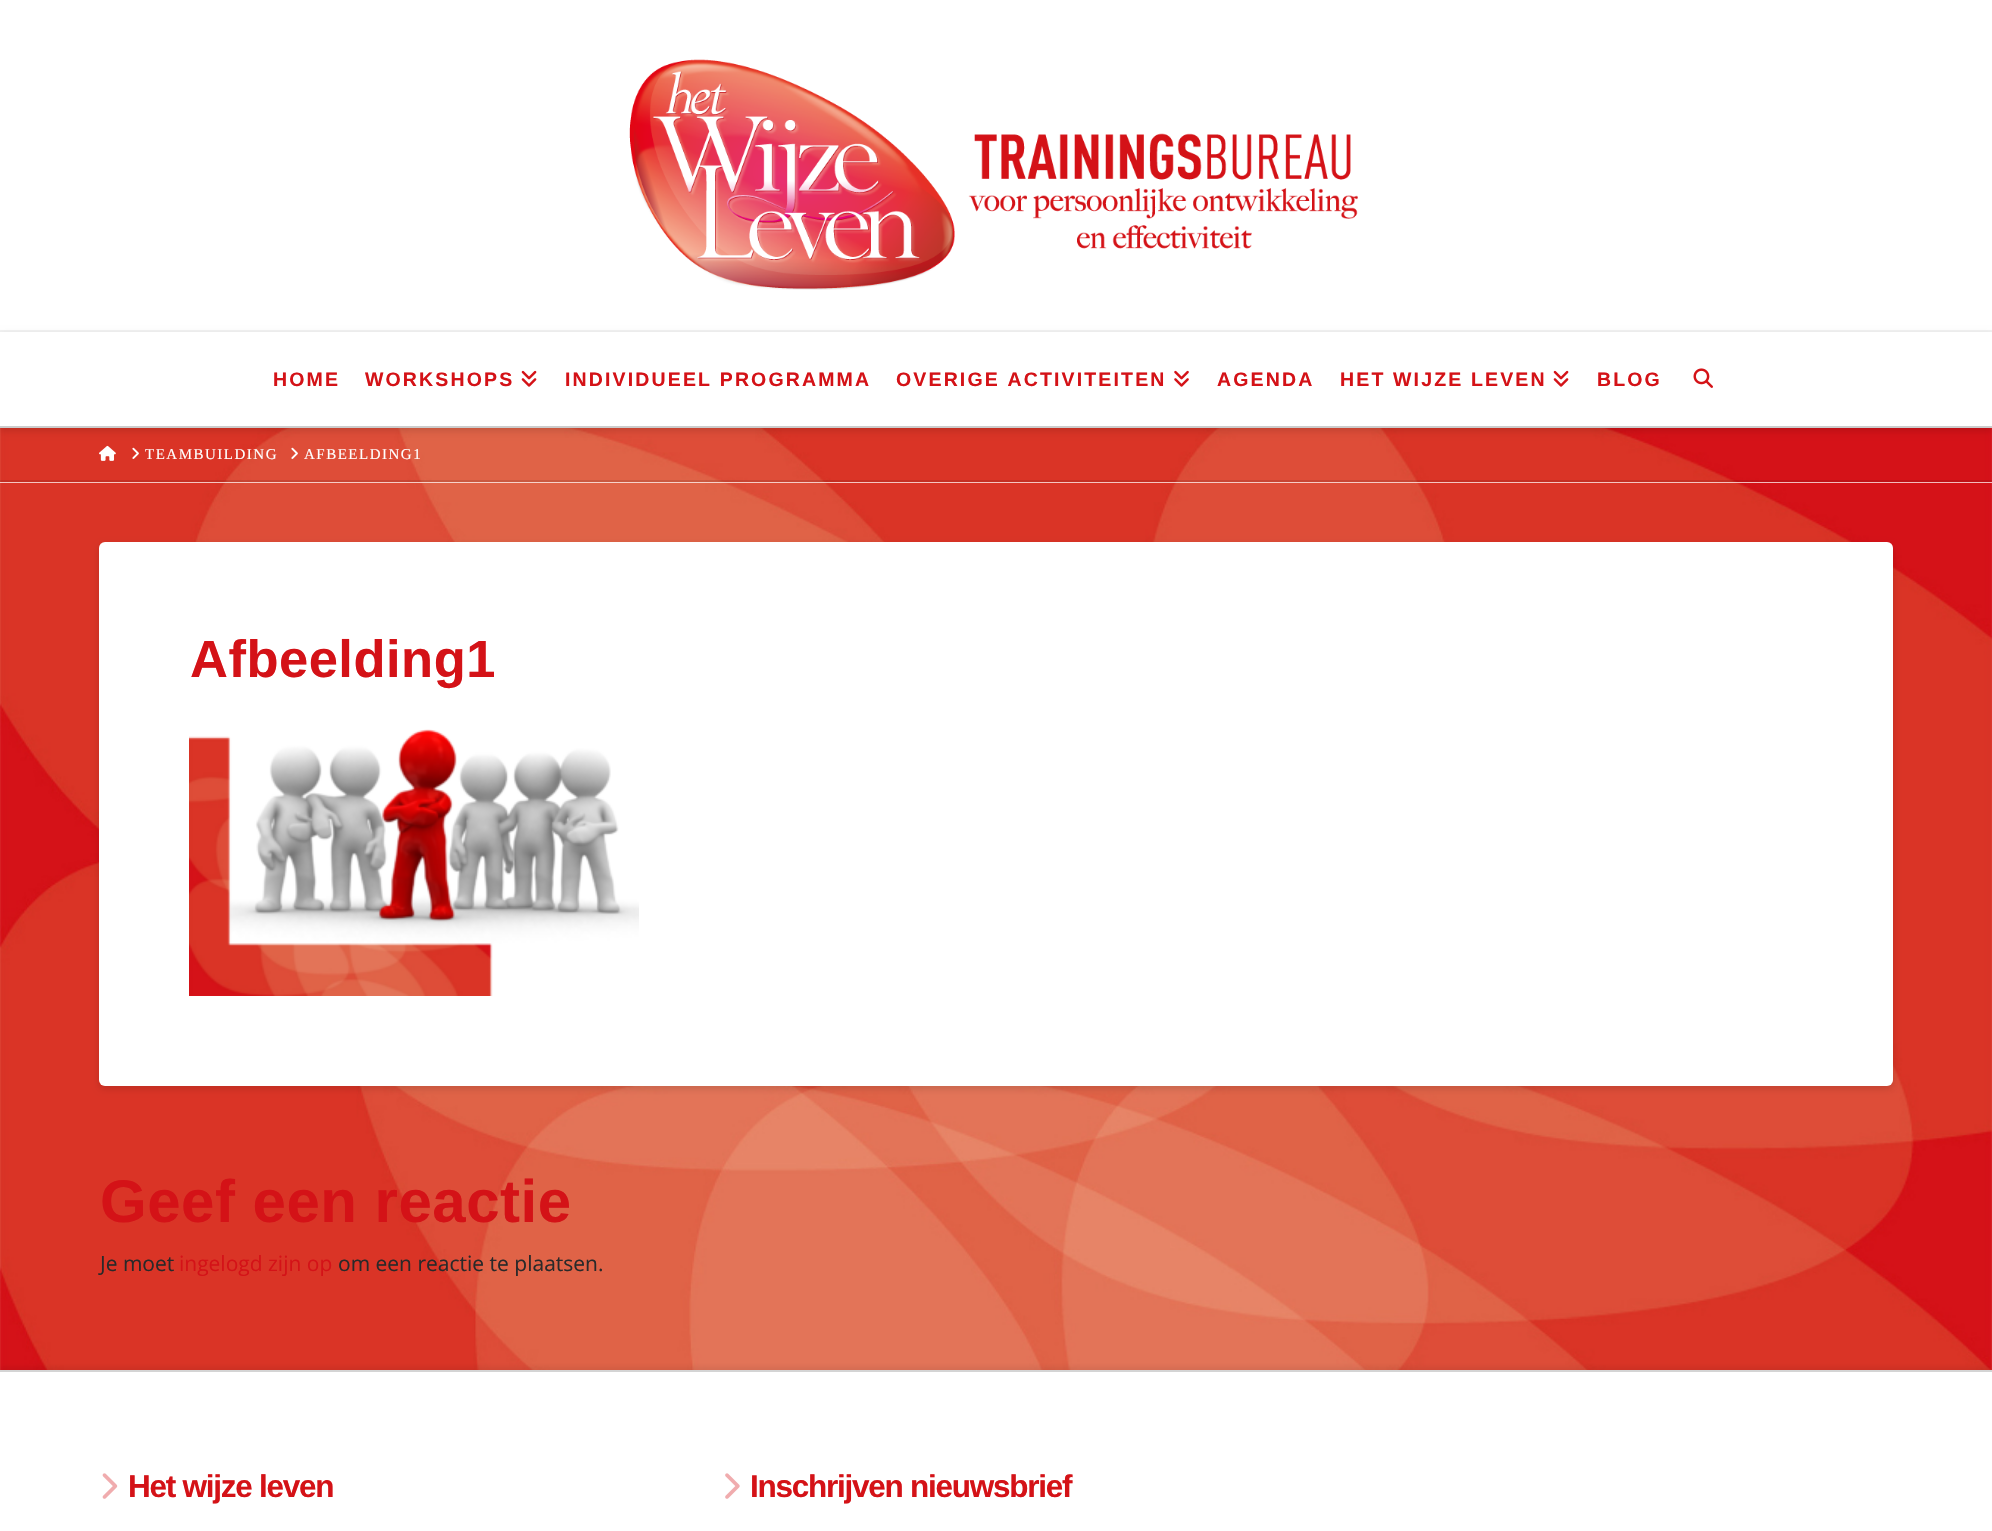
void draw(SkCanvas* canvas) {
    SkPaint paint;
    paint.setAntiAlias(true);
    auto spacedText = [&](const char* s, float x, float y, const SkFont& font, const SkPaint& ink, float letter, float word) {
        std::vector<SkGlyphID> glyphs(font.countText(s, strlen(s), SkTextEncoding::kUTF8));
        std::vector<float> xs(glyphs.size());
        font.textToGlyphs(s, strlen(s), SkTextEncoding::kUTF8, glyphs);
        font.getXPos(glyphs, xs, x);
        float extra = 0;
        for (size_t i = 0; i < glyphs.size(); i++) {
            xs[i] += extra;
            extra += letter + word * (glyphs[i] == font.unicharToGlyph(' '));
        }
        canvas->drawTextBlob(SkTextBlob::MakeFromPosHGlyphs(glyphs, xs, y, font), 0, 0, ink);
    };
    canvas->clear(0xFFFFFFFF);
    canvas->drawImageRect(SkImages::DeferredFromEncodedData(SkData::MakeFromFileName("img1.png")), SkRect::MakeXYWH(1991, 428, 1, 942), SkSamplingOptions());
    paint.setColor(0xFFF2F2F2);
    canvas->drawRect(SkRect::MakeXYWH(0, 330, 1992, 2), paint);
    canvas->drawImageRect(SkImages::DeferredFromEncodedData(SkData::MakeFromFileName("img2.png")), SkRect::MakeXYWH(629, 59, 729, 231), SkSamplingOptions());
    canvas->drawImageRect(SkImages::DeferredFromEncodedData(SkData::MakeFromFileName("img12.png")), SkRect::MakeXYWH(0, 428, 1992, 942), SkSamplingOptions());
    paint.setColor(0x21000000);
    paint.setMaskFilter(SkMaskFilter::MakeBlur(kNormal_SkBlurStyle, 3.5f));
    canvas->drawRect(SkRect::MakeXYWH(0, 335, 1992, 96), paint);
    paint.setMaskFilter(nullptr);
    paint.setColor(0xFFFFFFFF);
    canvas->drawRect(SkRect::MakeXYWH(0, 332, 1992, 94), paint);
    paint.setColor(0xFFCCCCCC);
    canvas->drawRect(SkRect::MakeXYWH(0, 426, 1992, 2), paint);
    SkFont font1(fontMgr->matchFamilyStyle("Liberation Sans", SkFontStyle::Bold()), 19.5f);
    font1.setSubpixel(true);
    paint.setColor(0xFFD41217);
    spacedText("HOME", 273, 386, font1, paint, 2.15f, 0);
    spacedText("WORKSHOPS", 365, 386, font1, paint, 2.15f, 0);
    canvas->drawImageRect(SkImages::DeferredFromEncodedData(SkData::MakeFromFileName("img3.png")), SkRect::MakeXYWH(521, 370, 16, 17), SkSamplingOptions());
    spacedText("INDIVIDUEEL PROGRAMMA", 565, 386, font1, paint, 2.15f, 0);
    spacedText("OVERIGE ACTIVITEITEN", 896, 386, font1, paint, 2.15f, 0);
    canvas->drawImageRect(SkImages::DeferredFromEncodedData(SkData::MakeFromFileName("img4.png")), SkRect::MakeXYWH(1174, 370, 15, 17), SkSamplingOptions());
    spacedText("AGENDA", 1217, 386, font1, paint, 2.15f, 0);
    spacedText("HET WIJZE LEVEN", 1340, 386, font1, paint, 2.15f, 0);
    canvas->drawImageRect(SkImages::DeferredFromEncodedData(SkData::MakeFromFileName("img3.png")), SkRect::MakeXYWH(1553, 370, 16, 17), SkSamplingOptions());
    spacedText("BLOG", 1597, 386, font1, paint, 2.15f, 0);
    canvas->drawImageRect(SkImages::DeferredFromEncodedData(SkData::MakeFromFileName("img5.png")), SkRect::MakeXYWH(1693, 368, 20, 20), SkSamplingOptions());
    paint.setColor(0xB5FFFFFF);
    canvas->drawRect(SkRect::MakeXYWH(0, 482, 1992, 1), paint);
    paint.setColor(0x1A000000);
    canvas->drawRect(SkRect::MakeXYWH(0, 480, 1992, 2), paint);
    canvas->drawImageRect(SkImages::DeferredFromEncodedData(SkData::MakeFromFileName("img6.png")), SkRect::MakeXYWH(99, 445, 17, 16), SkSamplingOptions());
    canvas->drawImageRect(SkImages::DeferredFromEncodedData(SkData::MakeFromFileName("img7.png")), SkRect::MakeXYWH(132, 447, 7, 12), SkSamplingOptions());
    SkFont font2(fontMgr->matchFamilyStyle("Liberation Serif", SkFontStyle::Normal()), 15);
    font2.setSubpixel(true);
    paint.setColor(0xFFFFFFFF);
    spacedText("TEAMBUILDING", 145, 459, font2, paint, 1.5f, 0);
    canvas->drawImageRect(SkImages::DeferredFromEncodedData(SkData::MakeFromFileName("img8.png")), SkRect::MakeXYWH(291, 447, 7, 12), SkSamplingOptions());
    spacedText("AFBEELDING1", 304, 459, font2, paint, 1.5f, 0);
    paint.setColor(0x21000000);
    paint.setMaskFilter(SkMaskFilter::MakeBlur(kNormal_SkBlurStyle, 3.5f));
    canvas->drawRoundRect(SkRect::MakeXYWH(99, 545, 1794, 544), 6, 6, paint);
    paint.setMaskFilter(nullptr);
    paint.setColor(0xFFFFFFFF);
    canvas->drawRoundRect(SkRect::MakeXYWH(99, 542, 1794, 544), 6, 6, paint);
    SkFont font3(fontMgr->matchFamilyStyle("Liberation Sans", SkFontStyle::Bold()), 52.5f);
    font3.setSubpixel(true);
    paint.setColor(0xFFD41217);
    spacedText("Afbeelding1", 190, 677, font3, paint, 0.5f, 0);
    canvas->drawImageRect(SkImages::DeferredFromEncodedData(SkData::MakeFromFileName("img9.png")), SkRect::MakeXYWH(189, 729, 450, 267), SkSamplingOptions());
    SkFont font4(fontMgr->matchFamilyStyle("Liberation Sans", SkFontStyle::Bold()), 60);
    font4.setSubpixel(true);
    spacedText("Geef een reactie", 100, 1222, font4, paint, 0.5f, 0);
    SkFont font5(fontMgr->matchFamilyStyle("Open Sans", SkFontStyle::Normal()), 21);
    font5.setSubpixel(true);
    paint.setColor(0xFF292929);
    canvas->drawString("Je moet", 100, 1271, font5, paint);
    paint.setColor(0xFFD41217);
    canvas->drawString("ingelogd zijn op", 179, 1271, font5, paint);
    paint.setColor(0xFF292929);
    canvas->drawString("om een reactie te plaatsen.", 338, 1271, font5, paint);
    paint.setColor(0x12000000);
    paint.setMaskFilter(SkMaskFilter::MakeBlur(kNormal_SkBlurStyle, 2.5f));
    canvas->drawRect(SkRect::MakeXYWH(0, 1367, 1992, 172), paint);
    paint.setMaskFilter(nullptr);
    paint.setColor(0xFFFFFFFF);
    canvas->drawRect(SkRect::MakeXYWH(0, 1372, 1992, 159), paint);
    paint.setColor(0xFFD4D4D4);
    canvas->drawRect(SkRect::MakeXYWH(0, 1370, 1992, 2), paint);
    canvas->drawImageRect(SkImages::DeferredFromEncodedData(SkData::MakeFromFileName("img10.png")), SkRect::MakeXYWH(102, 1473, 16, 26), SkSamplingOptions());
    SkFont font6(fontMgr->matchFamilyStyle("Liberation Sans", SkFontStyle::Bold()), 31.5f);
    font6.setSubpixel(true);
    paint.setColor(0xFFD41217);
    spacedText("Het wijze leven", 128, 1497, font6, paint, -1.25f, 0);
    canvas->drawImageRect(SkImages::DeferredFromEncodedData(SkData::MakeFromFileName("img11.png")), SkRect::MakeXYWH(725, 1473, 15, 26), SkSamplingOptions());
    spacedText("Inschrijven nieuwsbrief", 750, 1497, font6, paint, -1.25f, 0);
}
